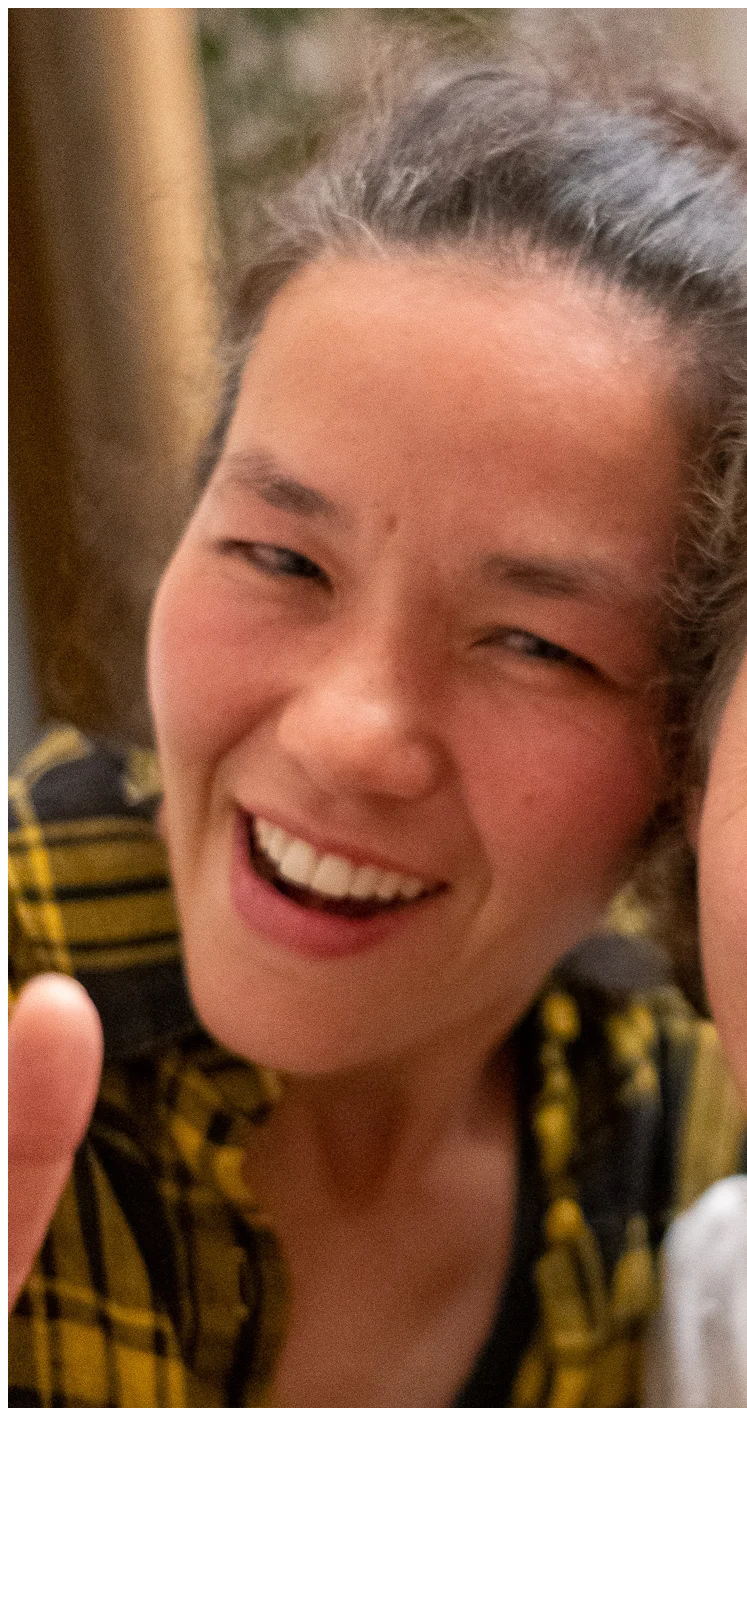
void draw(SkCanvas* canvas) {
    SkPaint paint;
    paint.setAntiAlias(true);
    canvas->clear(0xFFFFFFFF);
    canvas->drawImageRect(SkImages::DeferredFromEncodedData(SkData::MakeFromFileName("img1.png")), SkRect::MakeXYWH(8, 8, 739, 1400), SkSamplingOptions());
}
